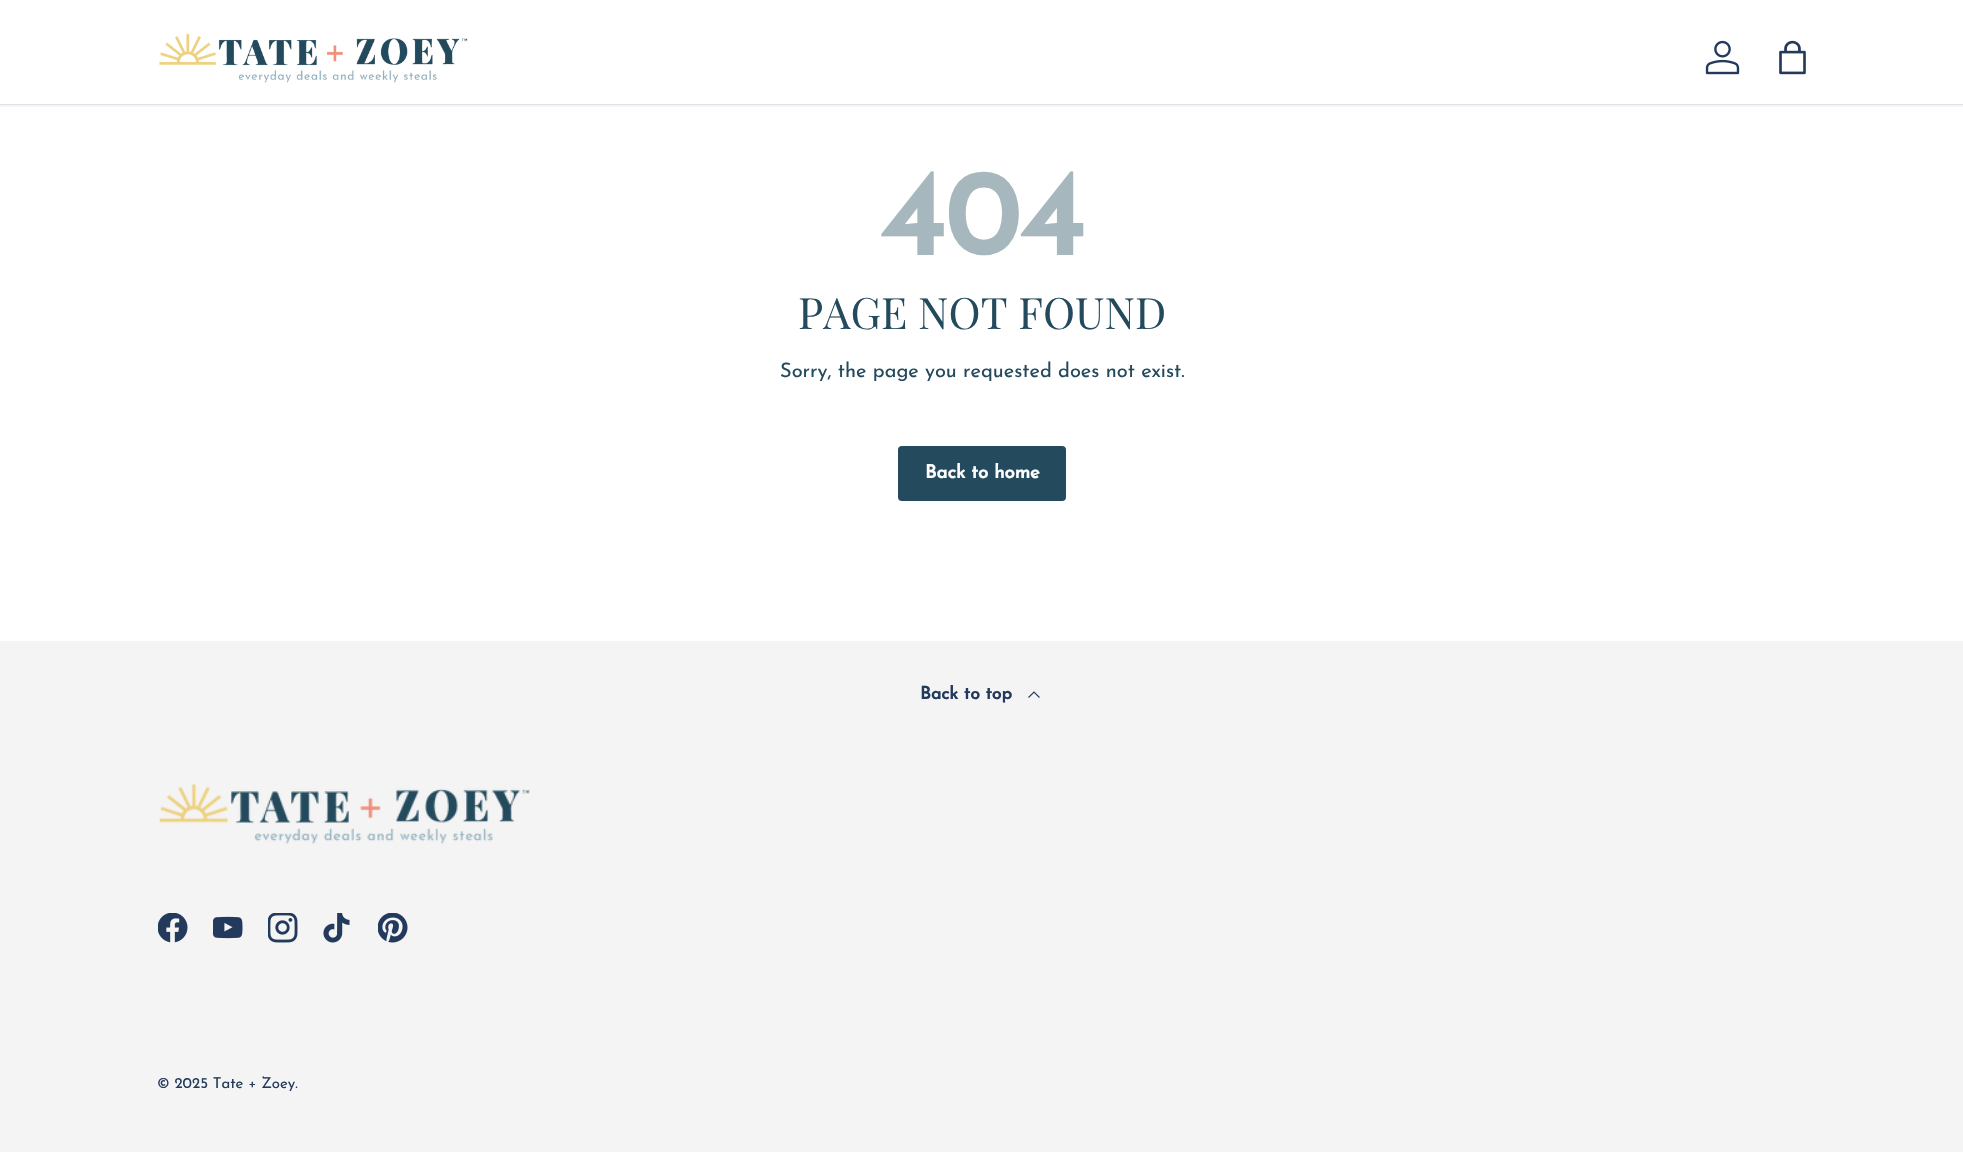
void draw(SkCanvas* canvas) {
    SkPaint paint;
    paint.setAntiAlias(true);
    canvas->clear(0xFFFFFFFF);
    canvas->save();
    canvas->clipRect(SkRect::MakeXYWH(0, 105, 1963, 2));
    paint.setColor(0x14000000);
    paint.setMaskFilter(SkMaskFilter::MakeBlur(kNormal_SkBlurStyle, 2));
    canvas->drawRect(SkRect::MakeXYWH(-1, -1, 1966, 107), paint);
    paint.setMaskFilter(nullptr);
    canvas->restore();
    canvas->drawImageRect(SkImages::DeferredFromEncodedData(SkData::MakeFromFileName("img1.png")), SkRect::MakeXYWH(159, 33, 309, 50), SkSamplingOptions());
    canvas->drawImageRect(SkImages::DeferredFromEncodedData(SkData::MakeFromFileName("img2.png")), SkRect::MakeXYWH(1705, 40, 35, 35), SkSamplingOptions());
    canvas->drawImageRect(SkImages::DeferredFromEncodedData(SkData::MakeFromFileName("img3.png")), SkRect::MakeXYWH(1779, 40, 27, 35), SkSamplingOptions());
    paint.setColor(0xFFDEE1E7);
    canvas->drawRect(SkRect::MakeXYWH(0, 104, 1963, 1), paint);
    SkFont font1(fontMgr->matchFamilyStyle("Josefin Sans", SkFontStyle::Bold()), 120);
    font1.setSubpixel(true);
    paint.setColor(0xFFA7B7BE);
    canvas->drawString("404", 880, 255, font1, paint);
    SkFont font2(fontMgr->matchFamilyStyle("Playfair Display", SkFontStyle::Normal()), 43.25f);
    font2.setSubpixel(true);
    paint.setColor(0xFF234A5D);
    canvas->drawString("PAGE NOT FOUND", 798, 329, font2, paint);
    SkFont font3(fontMgr->matchFamilyStyle("Josefin Sans", SkFontStyle::Normal()), 20);
    font3.setSubpixel(true);
    canvas->drawString("Sorry, the page you requested does not exist.", 780, 377, font3, paint);
    {
        const SkColor colors[] = {0xFF4A6D7F, 0xFF234A5D, 0xFF234A5D};
        const float stops[] = {0.6f, 0.6f, 1};
        const SkPoint ends[] = {{568, 413}, {1058, 535}};
        paint.setShader(SkGradientShader::MakeLinear(ends, colors, stops, 3, SkTileMode::kClamp));
        paint.setAlpha(255);
    }
    canvas->drawRoundRect(SkRect::MakeXYWH(898, 446, 168, 55), 4, 4, paint);
    SkFont font4(fontMgr->matchFamilyStyle("Josefin Sans", SkFontStyle::Bold()), 18.5f);
    font4.setSubpixel(true);
    paint.setShader(nullptr);
    paint.setColor(0xFFFFFFFF);
    canvas->drawString("Back to home", 925, 478, font4, paint);
    paint.setColor(0xFFF4F4F4);
    canvas->drawRect(SkRect::MakeXYWH(0, 641, 1963, 511), paint);
    SkFont font5(fontMgr->matchFamilyStyle("Josefin Sans", SkFontStyle::Bold()), 17.5f);
    font5.setSubpixel(true);
    paint.setColor(0xFF243A5D);
    canvas->drawString("Back to top", 920, 699, font5, paint);
    paint.setStyle(SkPaint::kStroke_Style);
    paint.setStrokeWidth(1.1f);
    canvas->drawPath(SkPathBuilder().moveTo(1028.5f, 697.5f).lineTo(1034, 692).lineTo(1039.5f, 697.5f).detach(), paint);
    canvas->drawImageRect(SkImages::DeferredFromEncodedData(SkData::MakeFromFileName("img4.png")), SkRect::MakeXYWH(159, 783, 371, 61), SkSamplingOptions());
    canvas->drawImageRect(SkImages::DeferredFromEncodedData(SkData::MakeFromFileName("img5.png")), SkRect::MakeXYWH(158, 913, 30, 30), SkSamplingOptions());
    canvas->drawImageRect(SkImages::DeferredFromEncodedData(SkData::MakeFromFileName("img6.png")), SkRect::MakeXYWH(213, 916, 30, 23), SkSamplingOptions());
    canvas->drawImageRect(SkImages::DeferredFromEncodedData(SkData::MakeFromFileName("img7.png")), SkRect::MakeXYWH(268, 913, 30, 30), SkSamplingOptions());
    canvas->drawImageRect(SkImages::DeferredFromEncodedData(SkData::MakeFromFileName("img8.png")), SkRect::MakeXYWH(323, 913, 27, 30), SkSamplingOptions());
    canvas->drawImageRect(SkImages::DeferredFromEncodedData(SkData::MakeFromFileName("img9.png")), SkRect::MakeXYWH(378, 913, 30, 30), SkSamplingOptions());
    SkFont font6(fontMgr->matchFamilyStyle("Josefin Sans", SkFontStyle::Normal()), 15);
    font6.setSubpixel(true);
    paint.setStyle(SkPaint::kFill_Style);
    canvas->drawString("© 2025 Tate + Zoey.", 157, 1088, font6, paint);
}
